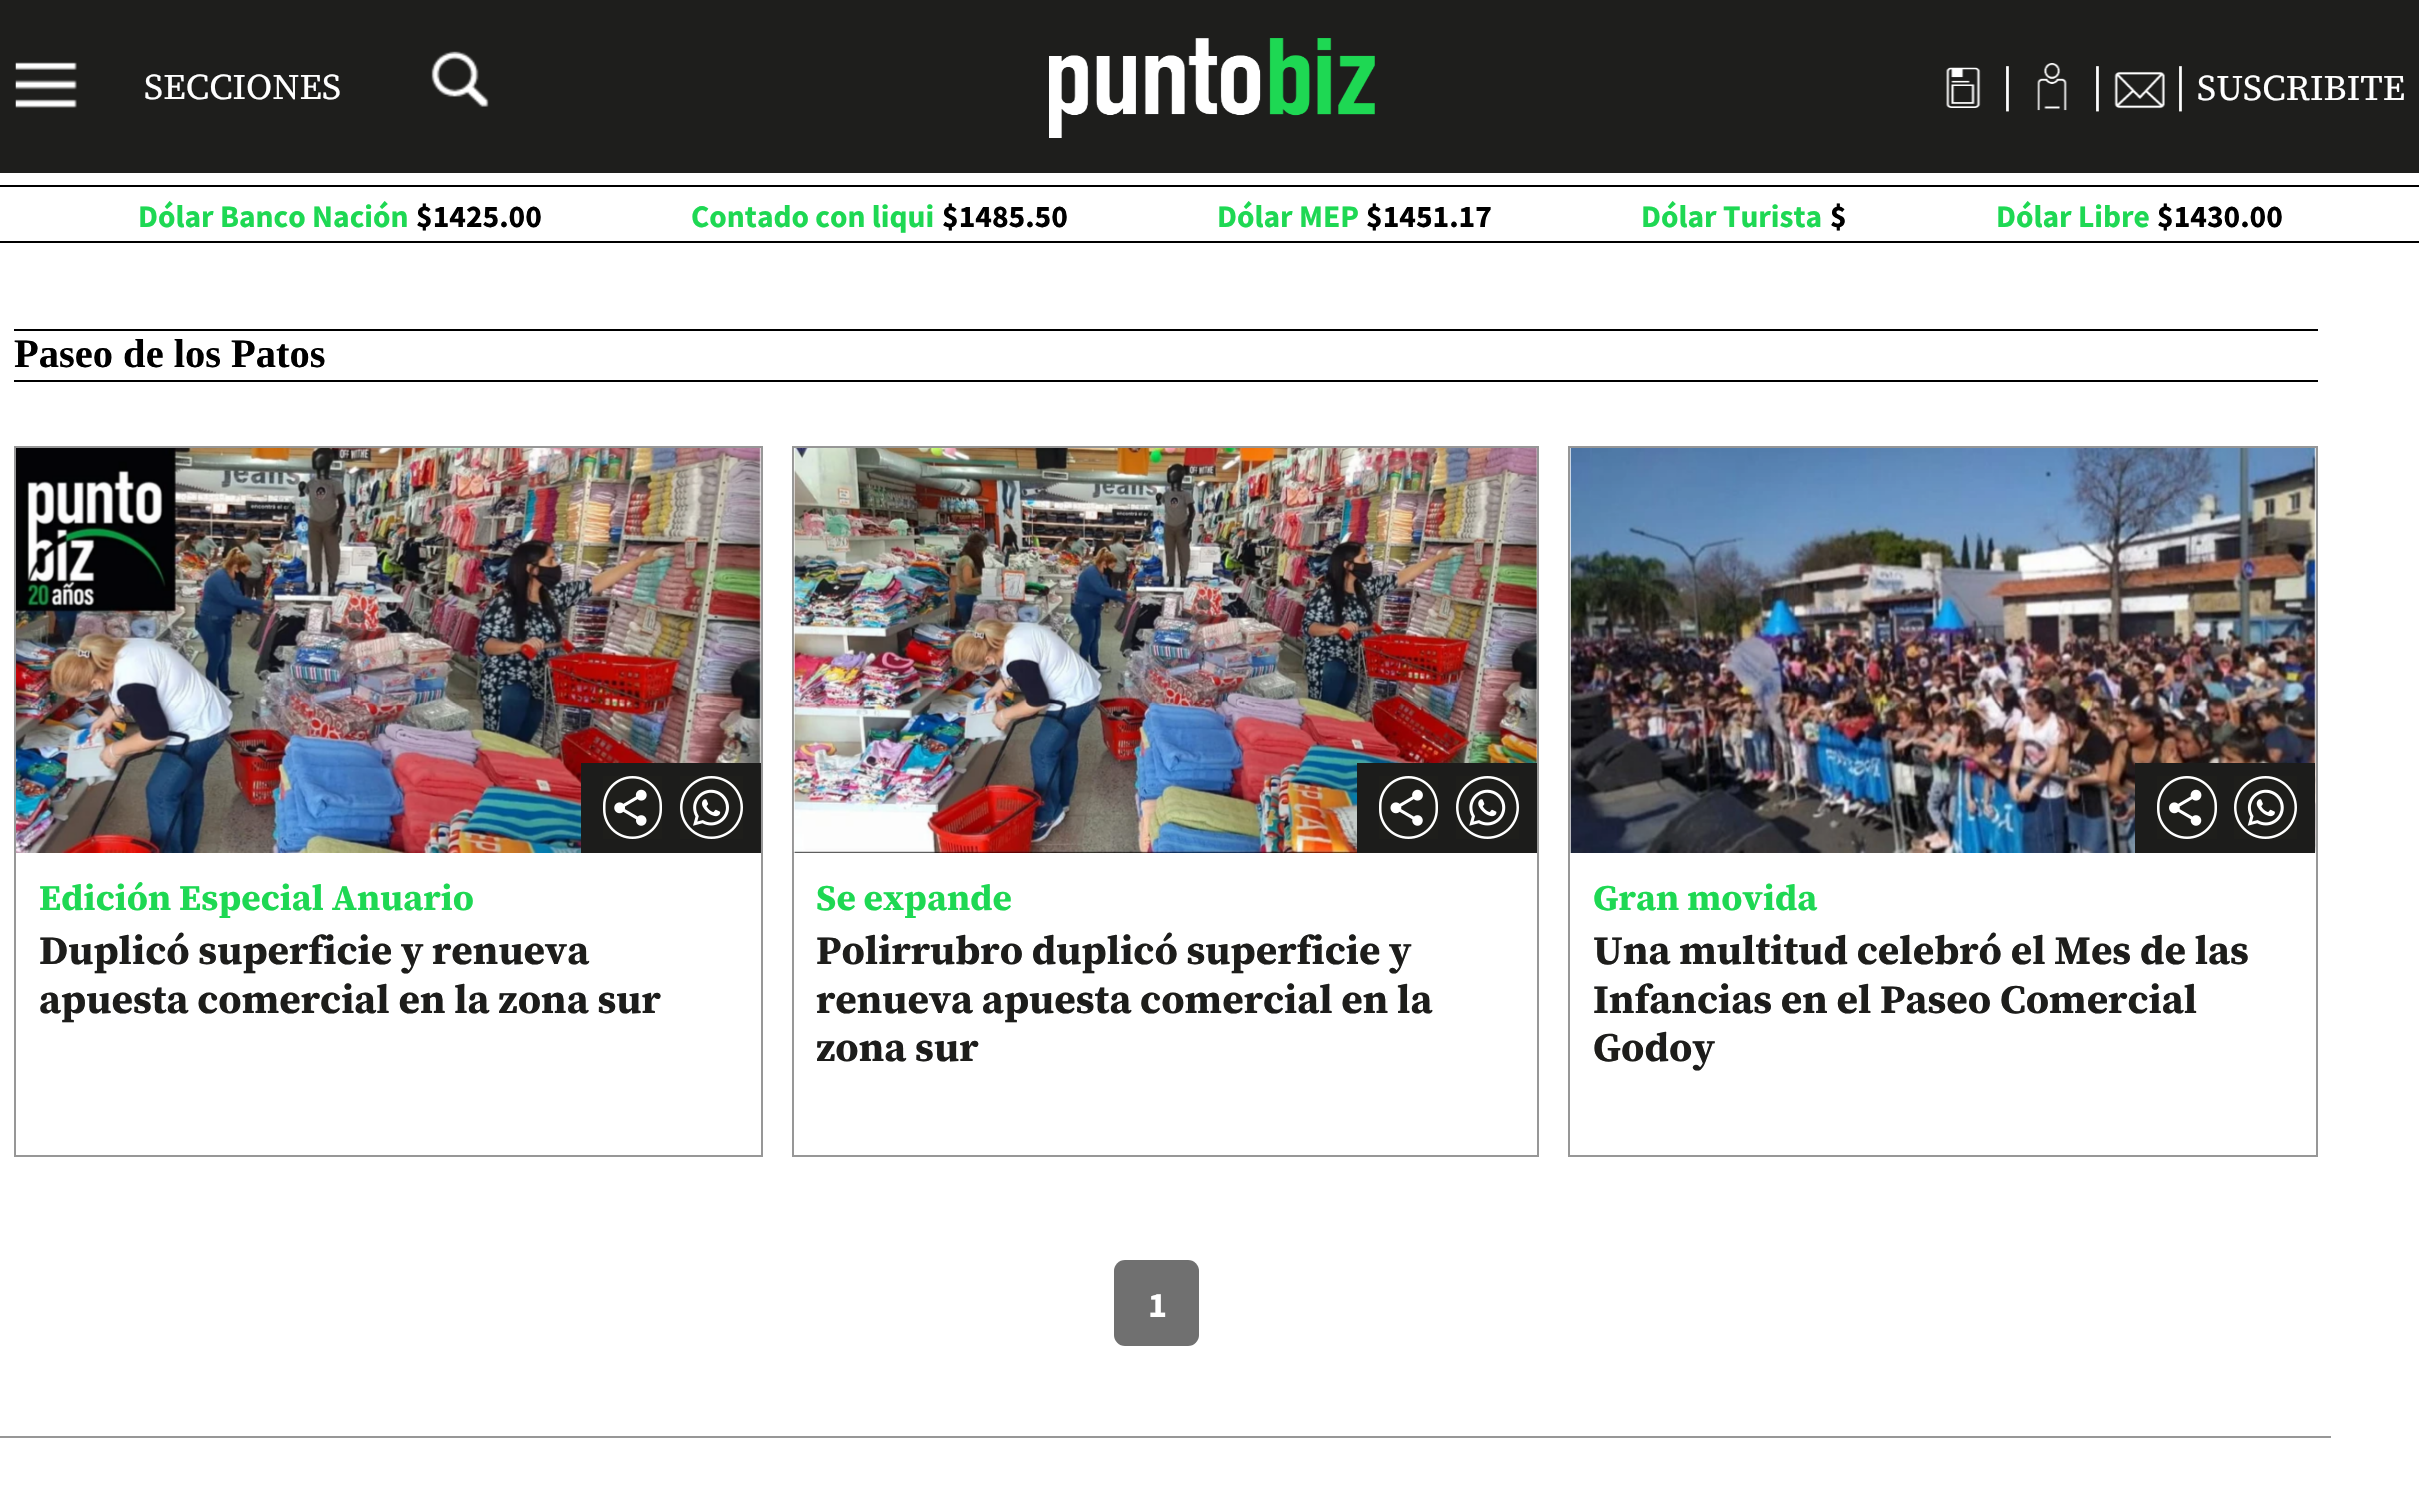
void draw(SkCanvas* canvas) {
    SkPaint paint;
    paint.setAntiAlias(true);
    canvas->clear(0xFFFFFFFF);
    paint.setColor(0xFF1E1E1C);
    canvas->drawRect(SkRect::MakeXYWH(0, 0, 2419, 173), paint);
    canvas->drawImageRect(SkImages::DeferredFromEncodedData(SkData::MakeFromFileName("img1.png")), SkRect::MakeXYWH(15, 62, 62, 46), SkSamplingOptions());
    SkFont font1(fontMgr->matchFamilyStyle("Source Serif 4", SkFontStyle::Normal()), 36);
    font1.setSubpixel(true);
    paint.setColor(0xFFFFFFFF);
    canvas->drawString("SECCIONES", 144, 99, font1, paint);
    canvas->drawImageRect(SkImages::DeferredFromEncodedData(SkData::MakeFromFileName("img2.png")), SkRect::MakeXYWH(431, 51, 58, 56), SkSamplingOptions());
    canvas->drawImageRect(SkImages::DeferredFromEncodedData(SkData::MakeFromFileName("img3.png")), SkRect::MakeXYWH(1049, 38, 326, 100), SkSamplingOptions());
    canvas->drawImageRect(SkImages::DeferredFromEncodedData(SkData::MakeFromFileName("img4.png")), SkRect::MakeXYWH(1946, 67, 35, 41), SkSamplingOptions());
    SkFont font2(fontMgr->matchFamilyStyle("Source Sans Pro", SkFontStyle::Normal()), 45);
    font2.setSubpixel(true);
    canvas->drawString("|", 2002, 100, font2, paint);
    canvas->drawImageRect(SkImages::DeferredFromEncodedData(SkData::MakeFromFileName("img5.png")), SkRect::MakeXYWH(2037, 63, 30, 48), SkSamplingOptions());
    canvas->drawString("|", 2092, 100, font2, paint);
    canvas->drawImageRect(SkImages::DeferredFromEncodedData(SkData::MakeFromFileName("img6.png")), SkRect::MakeXYWH(2114, 71, 51, 38), SkSamplingOptions());
    canvas->drawString("|", 2175, 100, font2, paint);
    canvas->drawString("SUSCRIBITE", 2197, 100, font1, paint);
    paint.setColor(0xFF000000);
    canvas->drawRect(SkRect::MakeXYWH(0, 185, 2419, 2), paint);
    canvas->drawRect(SkRect::MakeXYWH(0, 241, 2419, 2), paint);
    SkFont font3(fontMgr->matchFamilyStyle("Source Sans Pro", SkFontStyle::Bold()), 31.5f);
    font3.setSubpixel(true);
    paint.setColor(0xFF1ED853);
    canvas->drawString("Dólar Banco Nación", 138, 227, font3, paint);
    paint.setColor(0xFF000000);
    canvas->drawString("$1425.00", 416, 227, font3, paint);
    paint.setColor(0xFF1ED853);
    canvas->drawString("Contado con liqui", 691, 227, font3, paint);
    paint.setColor(0xFF000000);
    canvas->drawString("$1485.50", 942, 227, font3, paint);
    paint.setColor(0xFF1ED853);
    canvas->drawString("Dólar MEP", 1217, 227, font3, paint);
    paint.setColor(0xFF000000);
    canvas->drawString("$1451.17", 1366, 227, font3, paint);
    paint.setColor(0xFF1ED853);
    canvas->drawString("Dólar Turista", 1641, 227, font3, paint);
    paint.setColor(0xFF000000);
    canvas->drawString("$", 1830, 227, font3, paint);
    paint.setColor(0xFF1ED853);
    canvas->drawString("Dólar Libre", 1996, 227, font3, paint);
    paint.setColor(0xFF000000);
    canvas->drawString("$1430.00", 2157, 227, font3, paint);
    canvas->drawRect(SkRect::MakeXYWH(14, 329, 2304, 2), paint);
    canvas->drawRect(SkRect::MakeXYWH(14, 380, 2304, 2), paint);
    SkFont font4(fontMgr->matchFamilyStyle("Liberation Serif", SkFontStyle::Bold()), 40.5f);
    font4.setSubpixel(true);
    canvas->drawString("Paseo de los Patos", 14, 367, font4, paint);
    paint.setStyle(SkPaint::kStroke_Style);
    paint.setStrokeWidth(2);
    paint.setColor(0xFF979797);
    canvas->drawRect(SkRect::MakeXYWH(15, 447, 747, 709), paint);
    canvas->drawImageRect(SkImages::DeferredFromEncodedData(SkData::MakeFromFileName("img7.png")), SkRect::MakeXYWH(16, 448, 745, 405), SkSamplingOptions());
    paint.setStyle(SkPaint::kFill_Style);
    paint.setColor(0xFF1C1C1B);
    canvas->drawRect(SkRect::MakeXYWH(581, 763, 180, 90), paint);
    canvas->drawImageRect(SkImages::DeferredFromEncodedData(SkData::MakeFromFileName("img8.png")), SkRect::MakeXYWH(603, 776, 59, 63), SkSamplingOptions());
    canvas->drawImageRect(SkImages::DeferredFromEncodedData(SkData::MakeFromFileName("img9.png")), SkRect::MakeXYWH(680, 776, 63, 63), SkSamplingOptions());
    SkFont font5(fontMgr->matchFamilyStyle("Source Serif 4", SkFontStyle::Bold()), 36);
    font5.setSubpixel(true);
    paint.setColor(0xFF1ED853);
    canvas->drawString("Edición Especial Anuario", 39, 910, font5, paint);
    SkFont font6(fontMgr->matchFamilyStyle("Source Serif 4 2", SkFontStyle::Bold()), 40.5f);
    font6.setSubpixel(true);
    paint.setColor(0xFF1D1D1B);
    canvas->drawString("Duplicó superficie y renueva", 39, 964, font6, paint);
    canvas->drawString("apuesta comercial en la zona sur", 39, 1013, font6, paint);
    paint.setStyle(SkPaint::kStroke_Style);
    paint.setColor(0xFF979797);
    canvas->drawRect(SkRect::MakeXYWH(793, 447, 745, 709), paint);
    canvas->drawImageRect(SkImages::DeferredFromEncodedData(SkData::MakeFromFileName("img10.png")), SkRect::MakeXYWH(793, 448, 744, 405), SkSamplingOptions());
    paint.setStyle(SkPaint::kFill_Style);
    paint.setColor(0xFF1C1C1B);
    canvas->drawRect(SkRect::MakeXYWH(1357, 763, 180, 90), paint);
    canvas->drawImageRect(SkImages::DeferredFromEncodedData(SkData::MakeFromFileName("img11.png")), SkRect::MakeXYWH(1379, 776, 59, 63), SkSamplingOptions());
    canvas->drawImageRect(SkImages::DeferredFromEncodedData(SkData::MakeFromFileName("img12.png")), SkRect::MakeXYWH(1456, 776, 63, 63), SkSamplingOptions());
    paint.setColor(0xFF1ED853);
    canvas->drawString("Se expande", 816, 910, font5, paint);
    paint.setColor(0xFF1D1D1B);
    canvas->drawString("Polirrubro duplicó superficie y", 816, 964, font6, paint);
    canvas->drawString("renueva apuesta comercial en la", 816, 1013, font6, paint);
    canvas->save();
    canvas->clipRect(SkRect::MakeXYWH(817, 927, 697, 194));
    canvas->drawString("zona sur", 816, 1061, font6, paint);
    canvas->restore();
    paint.setStyle(SkPaint::kStroke_Style);
    paint.setColor(0xFF979797);
    canvas->drawRect(SkRect::MakeXYWH(1569, 447, 748, 709), paint);
    canvas->drawImageRect(SkImages::DeferredFromEncodedData(SkData::MakeFromFileName("img13.png")), SkRect::MakeXYWH(1570, 448, 746, 405), SkSamplingOptions());
    paint.setStyle(SkPaint::kFill_Style);
    paint.setColor(0xFF1C1C1B);
    canvas->drawRect(SkRect::MakeXYWH(2135, 763, 180, 90), paint);
    canvas->drawImageRect(SkImages::DeferredFromEncodedData(SkData::MakeFromFileName("img14.png")), SkRect::MakeXYWH(2157, 776, 60, 63), SkSamplingOptions());
    canvas->drawImageRect(SkImages::DeferredFromEncodedData(SkData::MakeFromFileName("img15.png")), SkRect::MakeXYWH(2234, 776, 63, 63), SkSamplingOptions());
    paint.setColor(0xFF1ED853);
    canvas->drawString("Gran movida", 1593, 910, font5, paint);
    paint.setColor(0xFF1D1D1B);
    canvas->drawString("Una multitud celebró el Mes de las", 1593, 964, font6, paint);
    canvas->drawString("Infancias en el Paseo Comercial", 1593, 1013, font6, paint);
    canvas->drawString("Godoy", 1593, 1061, font6, paint);
    paint.setColor(0xFF707070);
    canvas->drawRoundRect(SkRect::MakeXYWH(1114, 1260, 85, 86), 11, 11, paint);
    SkFont font7(fontMgr->matchFamilyStyle("Source Sans Pro", SkFontStyle::Bold()), 36);
    font7.setSubpixel(true);
    paint.setColor(0xFFFFFFFF);
    canvas->drawString("1", 1148, 1317, font7, paint);
    paint.setColor(0xFF979797);
    canvas->drawRect(SkRect::MakeXYWH(0, 1436, 2331, 2), paint);
}
